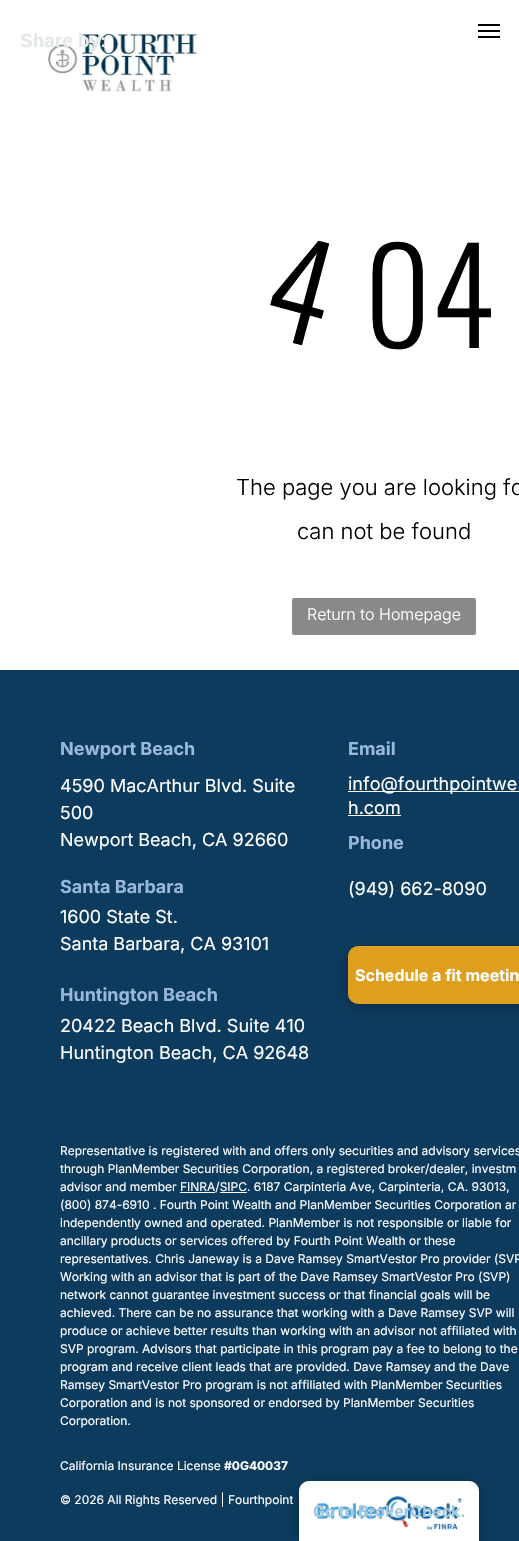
void draw(SkCanvas* canvas) {
    SkPaint paint;
    paint.setAntiAlias(true);
    canvas->clear(0xFFFFFFFF);
    canvas->drawImageRect(SkImages::DeferredFromEncodedData(SkData::MakeFromFileName("img1.png")), SkRect::MakeXYWH(48, 33, 150, 59), SkSamplingOptions());
    SkFont font1(fontMgr->matchFamilyStyle("Liberation Sans", SkFontStyle::Bold()), 19);
    font1.setSubpixel(true);
    paint.setColor(0xFFE3E8EB);
    canvas->drawString("Share by:", 20, 47, font1, paint);
    paint.setColor(0xFF000000);
    canvas->drawRect(SkRect::MakeXYWH(478, 24, 22, 2), paint);
    canvas->drawRect(SkRect::MakeXYWH(478, 30, 22, 2), paint);
    canvas->drawRect(SkRect::MakeXYWH(478, 36, 22, 2), paint);
    SkFont font2(fontMgr->matchFamilyStyle("Oswald", SkFontStyle(300, SkFontStyle::kNormal_Width, SkFontStyle::kUpright_Slant)), 130);
    font2.setSubpixel(true);
    canvas->save();
    canvas->rotate(15, 256, 333);
    canvas->drawString("4", 256, 333, font2, paint);
    canvas->restore();
    canvas->drawString("04", 364, 348, font2, paint);
    SkFont font3(fontMgr->matchFamilyStyle("Inter", SkFontStyle(300, SkFontStyle::kNormal_Width, SkFontStyle::kUpright_Slant)), 22);
    font3.setSubpixel(true);
    canvas->drawString("The page you are looking fo", 236, 495, font3, paint);
    canvas->drawString("can not be found", 297, 539, font3, paint);
    paint.setColor(0xFF898989);
    canvas->drawRoundRect(SkRect::MakeXYWH(292, 598, 184, 37), 2, 2, paint);
    SkFont font4(fontMgr->matchFamilyStyle("Inter", SkFontStyle(300, SkFontStyle::kNormal_Width, SkFontStyle::kUpright_Slant)), 16);
    font4.setSubpixel(true);
    paint.setColor(0xFFFFFFFF);
    canvas->drawString("Return to Homepage", 307, 620, font4, paint);
    paint.setColor(0xFF0D3B5D);
    canvas->drawRect(SkRect::MakeXYWH(0, 670, 519, 871), paint);
    SkFont font5(fontMgr->matchFamilyStyle("Inter", SkFontStyle::Bold()), 18);
    font5.setSubpixel(true);
    paint.setColor(0xFF99B8DD);
    canvas->drawString("Newport Beach", 60, 755, font5, paint);
    SkFont font6(fontMgr->matchFamilyStyle("Inter", SkFontStyle::Normal()), 18);
    font6.setSubpixel(true);
    paint.setColor(0xFFFFFFFF);
    canvas->drawString("4590 MacArthur Blvd. Suite", 60, 792, font6, paint);
    canvas->drawString("500", 60, 819, font6, paint);
    canvas->drawString("Newport Beach, CA 92660", 60, 846, font6, paint);
    paint.setColor(0xFF99B8DD);
    canvas->drawString("Santa Barbara", 60, 893, font5, paint);
    paint.setColor(0xFFFFFFFF);
    canvas->drawString("1600 State St.", 60, 923, font6, paint);
    canvas->drawString("Santa Barbara, CA 93101", 60, 950, font6, paint);
    paint.setColor(0xFF99B8DD);
    canvas->drawString("Huntington Beach", 60, 1001, font5, paint);
    paint.setColor(0xFFFFFFFF);
    canvas->drawString("20422 Beach Blvd. Suite 410", 60, 1032, font6, paint);
    canvas->drawString("Huntington Beach, CA 92648", 60, 1059, font6, paint);
    paint.setColor(0xFF99B8DD);
    canvas->drawString("Email", 348, 755, font5, paint);
    paint.setColor(0xFFFFFFFF);
    canvas->drawRect(SkRect::MakeXYWH(348, 791, 171, 1), paint);
    canvas->drawString("info@fourthpointwe", 348, 790, font6, paint);
    canvas->drawString("h.com", 348, 814, font6, paint);
    canvas->drawRect(SkRect::MakeXYWH(348, 815, 53, 1), paint);
    paint.setColor(0xFF99B8DD);
    canvas->drawString("Phone", 348, 849, font5, paint);
    paint.setColor(0xFFFFFFFF);
    canvas->drawString("(949) 662-8090", 348, 895, font6, paint);
    paint.setColor(0x40000000);
    paint.setMaskFilter(SkMaskFilter::MakeBlur(kNormal_SkBlurStyle, 5.5f));
    canvas->drawRoundRect(SkRect::MakeXYWH(348, 949, 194, 58), 10, 10, paint);
    paint.setMaskFilter(nullptr);
    paint.setColor(0xFFDE9F1E);
    canvas->drawRoundRect(SkRect::MakeXYWH(348, 946, 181, 58), 10, 10, paint);
    SkFont font7(fontMgr->matchFamilyStyle("Inter", SkFontStyle::Bold()), 16);
    font7.setSubpixel(true);
    paint.setColor(0xFFFFFFFF);
    canvas->drawString("Schedule a fit meetin", 355, 981, font7, paint);
    SkFont font8(fontMgr->matchFamilyStyle("Inter", SkFontStyle::Normal()), 12);
    font8.setSubpixel(true);
    canvas->drawString("Representative is registered with and offers only securities and advisory services", 60, 1155, font8, paint);
    canvas->drawString("through PlanMember Securities Corporation, a registered broker/dealer, investm", 60, 1173, font8, paint);
    canvas->drawString("advisor and member FINRA/SIPC. 6187 Carpinteria Ave, Carpinteria, CA. 93013,", 60, 1191, font8, paint);
    canvas->drawRect(SkRect::MakeXYWH(180, 1192, 35, 1), paint);
    canvas->drawRect(SkRect::MakeXYWH(220, 1192, 27, 1), paint);
    canvas->drawString("(800) 874-6910 . Fourth Point Wealth and PlanMember Securities Corporation ar", 60, 1209, font8, paint);
    canvas->drawString("independently owned and operated. PlanMember is not responsible or liable for", 60, 1227, font8, paint);
    canvas->drawString("ancillary products or services offered by Fourth Point Wealth or these", 60, 1245, font8, paint);
    canvas->drawString("representatives. Chris Janeway is a Dave Ramsey SmartVestor Pro provider (SVP", 60, 1263, font8, paint);
    canvas->drawString("Working with an advisor that is part of the Dave Ramsey SmartVestor Pro (SVP)", 60, 1281, font8, paint);
    canvas->drawString("network cannot guarantee investment success or that financial goals will be", 60, 1299, font8, paint);
    canvas->drawString("achieved. There can be no assurance that working with a Dave Ramsey SVP will", 60, 1317, font8, paint);
    canvas->drawString("produce or achieve better results than working with an advisor not affiliated with", 60, 1335, font8, paint);
    canvas->drawString("SVP program. Advisors that participate in this program pay a fee to belong to the", 60, 1353, font8, paint);
    canvas->drawString("program and receive client leads that are provided. Dave Ramsey and the Dave", 60, 1371, font8, paint);
    canvas->drawString("Ramsey SmartVestor Pro program is not affiliated with PlanMember Securities", 60, 1389, font8, paint);
    canvas->drawString("Corporation and is not sponsored or endorsed by PlanMember Securities", 60, 1407, font8, paint);
    canvas->drawString("Corporation.", 60, 1425, font8, paint);
    canvas->drawString("California Insurance License", 60, 1470, font8, paint);
    SkFont font9(fontMgr->matchFamilyStyle("Inter", SkFontStyle::Bold()), 12);
    font9.setSubpixel(true);
    canvas->drawString("#0G40037", 224, 1470, font9, paint);
    canvas->drawString("© 2026 All Rights Reserved | Fourthpoint", 60, 1504, font8, paint);
    paint.setColor(0x40000000);
    paint.setMaskFilter(SkMaskFilter::MakeBlur(kNormal_SkBlurStyle, 5.5f));
    canvas->drawRoundRect(SkRect::MakeXYWH(299, 1484, 180, 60), 10, 10, paint);
    paint.setMaskFilter(nullptr);
    paint.setColor(0xFFFFFFFF);
    canvas->drawPath(SkPathBuilder().moveTo(309, 1481).lineTo(469, 1481).cubicTo(474.5f, 1481, 479, 1485.5f, 479, 1491).lineTo(479, 1541).lineTo(299, 1541).lineTo(299, 1491).cubicTo(299, 1485.5f, 303.5f, 1481, 309, 1481).close().detach(), paint);
    canvas->drawImageRect(SkImages::DeferredFromEncodedData(SkData::MakeFromFileName("img2.png")), SkRect::MakeXYWH(316, 1496, 147, 35), SkSamplingOptions());
    paint.setColor(0xFFA2C8E1);
    canvas->drawString("Go to BrokerCheck.", 313, 1517, font7, paint);
}
